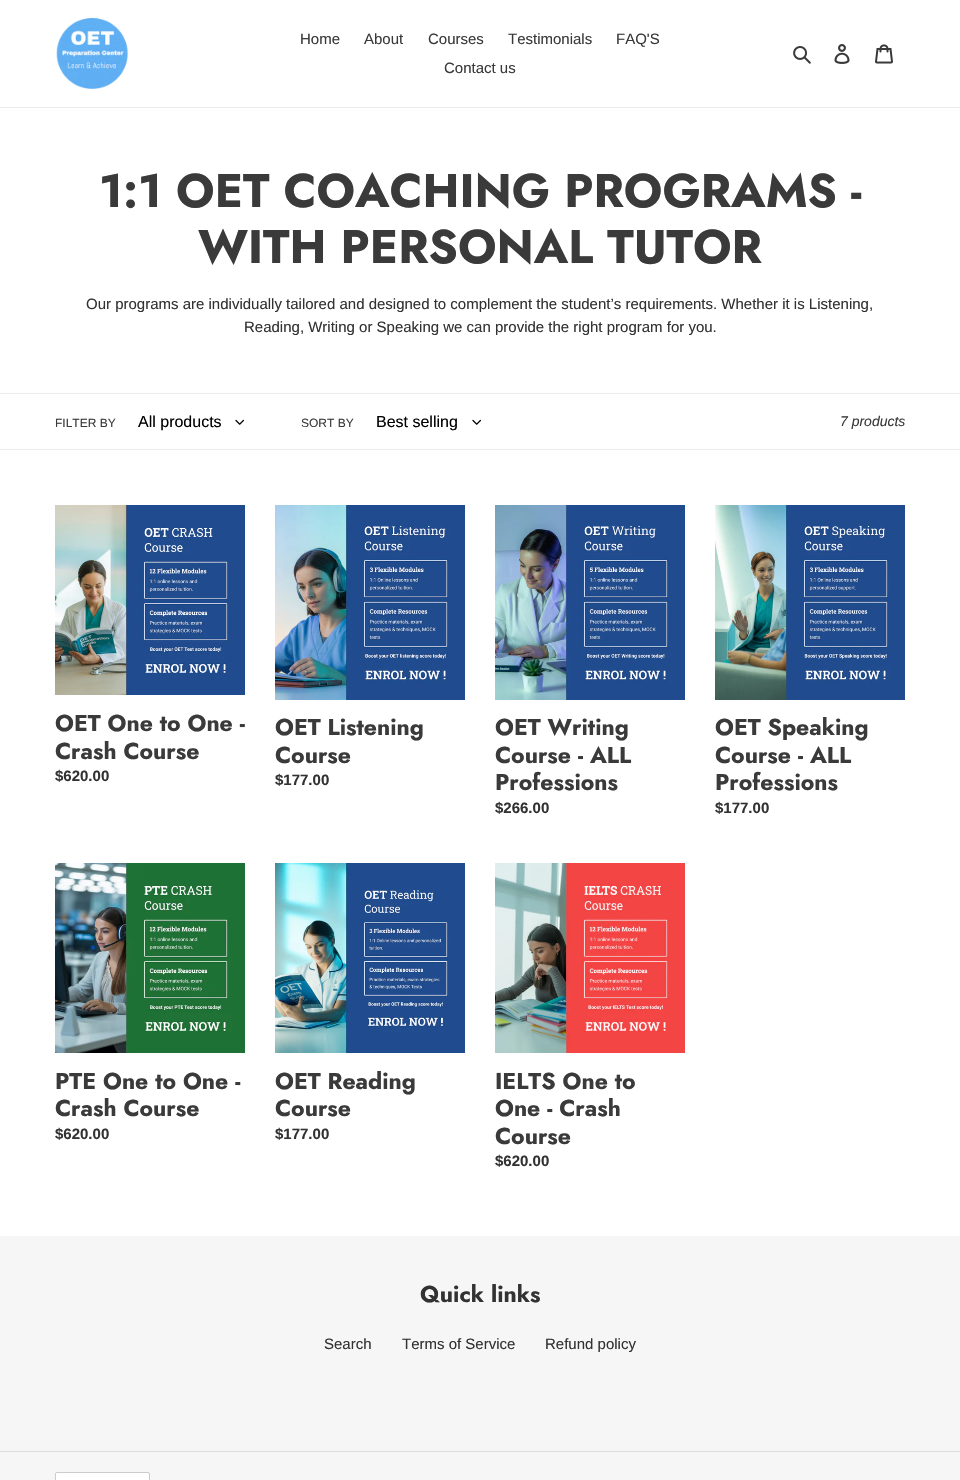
void draw(SkCanvas* canvas) {
    SkPaint paint;
    paint.setAntiAlias(true);
    canvas->clear(0xFFFFFFFF);
    paint.setColor(0xFFEBEBEB);
    canvas->drawRect(SkRect::MakeXYWH(0, 107, 960, 1), paint);
    canvas->drawImageRect(SkImages::DeferredFromEncodedData(SkData::MakeFromFileName("img1.png")), SkRect::MakeXYWH(56, 18, 73, 71), SkSamplingOptions());
    SkFont font1(fontMgr->matchFamilyStyle("Liberation Sans", SkFontStyle::Normal()), 15);
    font1.setSubpixel(true);
    paint.setColor(0xFF3A3A3A);
    canvas->drawString("Home", 300, 44, font1, paint);
    canvas->drawString("About", 364, 44, font1, paint);
    canvas->drawString("Courses", 428, 44, font1, paint);
    canvas->drawString("Testimonials", 508, 44, font1, paint);
    canvas->drawString("FAQ'S", 616, 44, font1, paint);
    canvas->drawString("Contact us", 444, 73, font1, paint);
    canvas->drawImageRect(SkImages::DeferredFromEncodedData(SkData::MakeFromFileName("img2.png")), SkRect::MakeXYWH(793, 46, 18, 18), SkSamplingOptions());
    canvas->drawImageRect(SkImages::DeferredFromEncodedData(SkData::MakeFromFileName("img3.png")), SkRect::MakeXYWH(834, 44, 16, 20), SkSamplingOptions());
    canvas->drawImageRect(SkImages::DeferredFromEncodedData(SkData::MakeFromFileName("img4.png")), SkRect::MakeXYWH(875, 44, 18, 20), SkSamplingOptions());
    SkFont font2(fontMgr->matchFamilyStyle("Jost", SkFontStyle::Bold()), 47);
    font2.setSubpixel(true);
    canvas->drawString("1:1 OET COACHING PROGRAMS -", 99, 207, font2, paint);
    canvas->drawString("WITH PERSONAL TUTOR", 198, 263, font2, paint);
    paint.setColor(0xFF333232);
    canvas->drawString("Our programs are individually tailored and designed to complement the student’s requirements. Whether it is Listening,", 86, 309, font1, paint);
    canvas->drawString("Reading, Writing or Speaking we can provide the right program for you.", 244, 332, font1, paint);
    paint.setColor(0xFFEBEBEB);
    canvas->drawRect(SkRect::MakeXYWH(0, 393, 960, 1), paint);
    canvas->drawRect(SkRect::MakeXYWH(0, 449, 960, 1), paint);
    SkFont font3(fontMgr->matchFamilyStyle("Liberation Sans", SkFontStyle::Normal()), 12);
    font3.setSubpixel(true);
    paint.setColor(0xFF3A3A3A);
    canvas->drawString("FILTER BY", 55, 427, font3, paint);
    SkFont font4(fontMgr->matchFamilyStyle("Liberation Sans", SkFontStyle::Normal()), 16);
    font4.setSubpixel(true);
    paint.setColor(0xFF000000);
    canvas->drawString("All products", 138, 427, font4, paint);
    canvas->drawImageRect(SkImages::DeferredFromEncodedData(SkData::MakeFromFileName("img5.png")), SkRect::MakeXYWH(235, 419, 9, 6), SkSamplingOptions());
    paint.setColor(0xFF3A3A3A);
    canvas->drawString("SORT BY", 301, 427, font3, paint);
    paint.setColor(0xFF000000);
    canvas->drawString("Best selling", 376, 427, font4, paint);
    canvas->drawImageRect(SkImages::DeferredFromEncodedData(SkData::MakeFromFileName("img5.png")), SkRect::MakeXYWH(472, 419, 9, 6), SkSamplingOptions());
    SkFont font5(fontMgr->matchFamilyStyle("Liberation Sans", SkFontStyle::Italic()), 14);
    font5.setSubpixel(true);
    paint.setColor(0xFF3A3A3A);
    canvas->drawString("7 products", 840, 426, font5, paint);
    canvas->drawImageRect(SkImages::DeferredFromEncodedData(SkData::MakeFromFileName("img6.png")), SkRect::MakeXYWH(55, 505, 190, 190), SkSamplingOptions());
    SkFont font6(fontMgr->matchFamilyStyle("Jost", SkFontStyle::Bold()), 23);
    font6.setSubpixel(true);
    canvas->drawString("OET One to One -", 55, 731, font6, paint);
    canvas->drawString("Crash Course", 55, 759, font6, paint);
    SkFont font7(fontMgr->matchFamilyStyle("Liberation Sans", SkFontStyle::Bold()), 15);
    font7.setSubpixel(true);
    paint.setColor(0xFF333232);
    canvas->drawString("$620.00", 55, 781, font7, paint);
    canvas->drawImageRect(SkImages::DeferredFromEncodedData(SkData::MakeFromFileName("img7.png")), SkRect::MakeXYWH(275, 505, 190, 195), SkSamplingOptions());
    paint.setColor(0xFF3A3A3A);
    canvas->drawString("OET Listening", 275, 735, font6, paint);
    canvas->drawString("Course", 275, 763, font6, paint);
    paint.setColor(0xFF333232);
    canvas->drawString("$177.00", 275, 785, font7, paint);
    canvas->drawImageRect(SkImages::DeferredFromEncodedData(SkData::MakeFromFileName("img8.png")), SkRect::MakeXYWH(495, 505, 190, 195), SkSamplingOptions());
    paint.setColor(0xFF3A3A3A);
    canvas->drawString("OET Writing", 495, 735, font6, paint);
    canvas->drawString("Course - ALL", 495, 763, font6, paint);
    canvas->drawString("Professions", 495, 790, font6, paint);
    paint.setColor(0xFF333232);
    canvas->drawString("$266.00", 495, 813, font7, paint);
    canvas->drawImageRect(SkImages::DeferredFromEncodedData(SkData::MakeFromFileName("img9.png")), SkRect::MakeXYWH(715, 505, 190, 195), SkSamplingOptions());
    paint.setColor(0xFF3A3A3A);
    canvas->drawString("OET Speaking", 715, 735, font6, paint);
    canvas->drawString("Course - ALL", 715, 763, font6, paint);
    canvas->drawString("Professions", 715, 790, font6, paint);
    paint.setColor(0xFF333232);
    canvas->drawString("$177.00", 715, 813, font7, paint);
    canvas->drawImageRect(SkImages::DeferredFromEncodedData(SkData::MakeFromFileName("img10.png")), SkRect::MakeXYWH(55, 863, 190, 190), SkSamplingOptions());
    paint.setColor(0xFF3A3A3A);
    canvas->drawString("PTE One to One -", 55, 1089, font6, paint);
    canvas->drawString("Crash Course", 55, 1116, font6, paint);
    paint.setColor(0xFF333232);
    canvas->drawString("$620.00", 55, 1139, font7, paint);
    canvas->drawImageRect(SkImages::DeferredFromEncodedData(SkData::MakeFromFileName("img11.png")), SkRect::MakeXYWH(275, 863, 190, 190), SkSamplingOptions());
    paint.setColor(0xFF3A3A3A);
    canvas->drawString("OET Reading", 275, 1089, font6, paint);
    canvas->drawString("Course", 275, 1116, font6, paint);
    paint.setColor(0xFF333232);
    canvas->drawString("$177.00", 275, 1139, font7, paint);
    canvas->drawImageRect(SkImages::DeferredFromEncodedData(SkData::MakeFromFileName("img12.png")), SkRect::MakeXYWH(495, 863, 190, 190), SkSamplingOptions());
    paint.setColor(0xFF3A3A3A);
    canvas->drawString("IELTS One to", 495, 1089, font6, paint);
    canvas->drawString("One - Crash", 495, 1116, font6, paint);
    canvas->drawString("Course", 495, 1144, font6, paint);
    paint.setColor(0xFF333232);
    canvas->drawString("$620.00", 495, 1166, font7, paint);
    paint.setColor(0xFFF6F6F6);
    canvas->drawRect(SkRect::MakeXYWH(0, 1236, 960, 244), paint);
    paint.setColor(0xFF333232);
    canvas->drawString("Quick links", 420, 1302, font6, paint);
    canvas->drawString("Search", 324, 1349, font1, paint);
    canvas->drawString("Terms of Service", 402, 1349, font1, paint);
    canvas->drawString("Refund policy", 545, 1349, font1, paint);
    paint.setColor(0xFFDDDDDD);
    canvas->drawRect(SkRect::MakeXYWH(0, 1451, 960, 1), paint);
    paint.setColor(0xFFFFFFFF);
    canvas->drawRoundRect(SkRect::MakeXYWH(55.5f, 1472.5f, 94, 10), 1.5f, 1.5f, paint);
    paint.setStyle(SkPaint::kStroke_Style);
    paint.setStrokeWidth(1);
    paint.setColor(0xFFCCCCCC);
    canvas->drawRoundRect(SkRect::MakeXYWH(55.5f, 1472.5f, 94, 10), 1.5f, 1.5f, paint);
}
